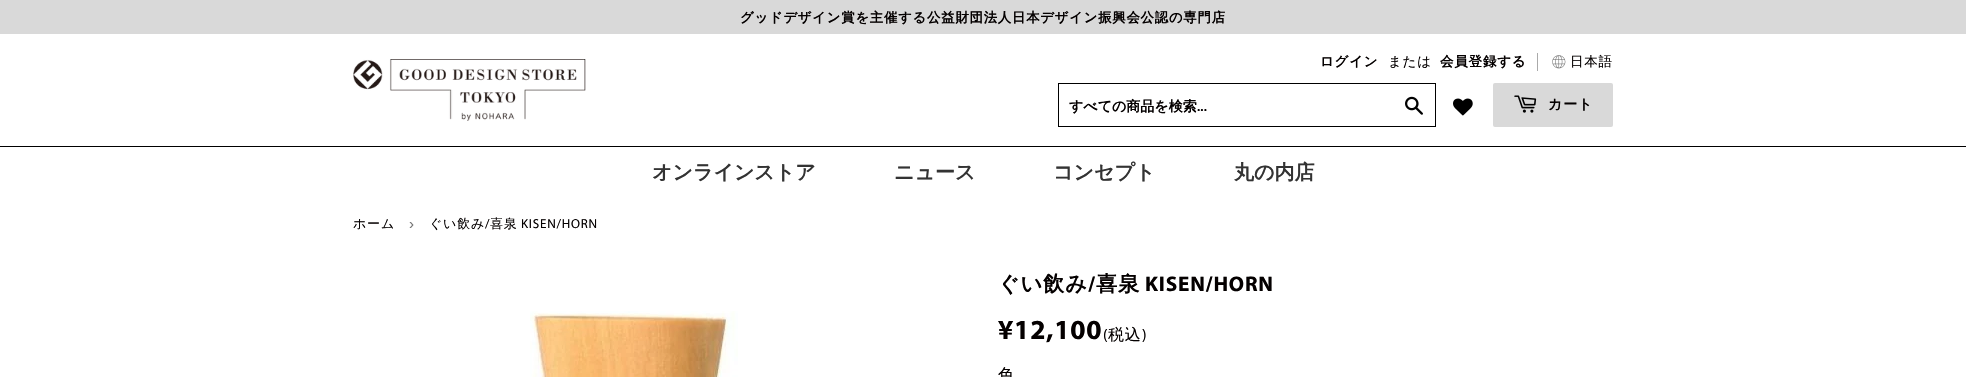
void draw(SkCanvas* canvas) {
    SkPaint paint;
    paint.setAntiAlias(true);
    auto spacedText = [&](const char* s, float x, float y, const SkFont& font, const SkPaint& ink, float letter, float word) {
        std::vector<SkGlyphID> glyphs(font.countText(s, strlen(s), SkTextEncoding::kUTF8));
        std::vector<float> xs(glyphs.size());
        font.textToGlyphs(s, strlen(s), SkTextEncoding::kUTF8, glyphs);
        font.getXPos(glyphs, xs, x);
        float extra = 0;
        for (size_t i = 0; i < glyphs.size(); i++) {
            xs[i] += extra;
            extra += letter + word * (glyphs[i] == font.unicharToGlyph(' '));
        }
        canvas->drawTextBlob(SkTextBlob::MakeFromPosHGlyphs(glyphs, xs, y, font), 0, 0, ink);
    };
    canvas->clear(0xFFFFFFFF);
    paint.setColor(0xFFD9D9D9);
    canvas->drawRect(SkRect::MakeXYWH(0, 0, 1966, 34), paint);
    SkFont font1(fontMgr->matchFamilyStyle("WenQuanYi Zen Hei", SkFontStyle::Bold()), 13.35f);
    font1.setSubpixel(true);
    paint.setColor(0xFF040000);
    spacedText("グッドデザイン賞を主催する公益財団法人日本デザイン振興会公認の専門店", 740, 22, font1, paint, 0.8f, 0);
    paint.setColor(0xFF000000);
    canvas->drawRect(SkRect::MakeXYWH(0, 146, 1966, 1), paint);
    canvas->drawImageRect(SkImages::DeferredFromEncodedData(SkData::MakeFromFileName("img1.png")), SkRect::MakeXYWH(353, 59, 233, 62), SkSamplingOptions());
    paint.setColor(0xFFAAAAAA);
    canvas->drawRect(SkRect::MakeXYWH(1537, 53, 1, 18), paint);
    SkFont font2(fontMgr->matchFamilyStyle("WenQuanYi Zen Hei", SkFontStyle::Bold()), 13.5f);
    font2.setSubpixel(true);
    paint.setColor(0xFF040000);
    spacedText("ログイン", 1320, 66, font2, paint, 0.8f, 0);
    SkFont font3(fontMgr->matchFamilyStyle("WenQuanYi Zen Hei", SkFontStyle(500, SkFontStyle::kNormal_Width, SkFontStyle::kUpright_Slant)), 13.5f);
    font3.setSubpixel(true);
    spacedText("または", 1388, 66, font3, paint, 0.8f, 0);
    spacedText("会員登録する", 1440, 66, font2, paint, 0.8f, 0);
    canvas->drawImageRect(SkImages::DeferredFromEncodedData(SkData::MakeFromFileName("img2.png")), SkRect::MakeXYWH(1552, 55, 14, 14), SkSamplingOptions());
    spacedText("日本語", 1570, 66, font3, paint, 0.8f, 0);
    paint.setStyle(SkPaint::kStroke_Style);
    paint.setStrokeWidth(1);
    paint.setColor(0xFF000000);
    canvas->drawRect(SkRect::MakeXYWH(1058.5f, 83.5f, 377, 43), paint);
    SkFont font4(fontMgr->matchFamilyStyle("WenQuanYi Zen Hei", SkFontStyle::Bold()), 14);
    font4.setSubpixel(true);
    paint.setStyle(SkPaint::kFill_Style);
    paint.setColor(0xFF040000);
    canvas->drawString("すべての商品を検索", 1069, 111, font4, paint);
    SkFont font5(fontMgr->matchFamilyStyle("Lato", SkFontStyle::Bold()), 14);
    font5.setSubpixel(true);
    canvas->drawString("...", 1197, 111, font5, paint);
    canvas->drawImageRect(SkImages::DeferredFromEncodedData(SkData::MakeFromFileName("img3.png")), SkRect::MakeXYWH(1405, 96, 18, 19), SkSamplingOptions());
    canvas->drawImageRect(SkImages::DeferredFromEncodedData(SkData::MakeFromFileName("img4.png")), SkRect::MakeXYWH(1453, 98, 20, 18), SkSamplingOptions());
    paint.setColor(0xFFD9D9D9);
    canvas->drawRoundRect(SkRect::MakeXYWH(1493, 83, 120, 44), 2, 2, paint);
    canvas->drawImageRect(SkImages::DeferredFromEncodedData(SkData::MakeFromFileName("img5.png")), SkRect::MakeXYWH(1514, 95, 23, 18), SkSamplingOptions());
    paint.setColor(0xFF040000);
    spacedText("カート", 1548, 109, font4, paint, 0.8f, 0);
    SkFont font6(fontMgr->matchFamilyStyle("WenQuanYi Zen Hei", SkFontStyle::Bold()), 20);
    font6.setSubpixel(true);
    paint.setColor(0xFF333333);
    canvas->drawString("オンラインストア", 652, 179, font6, paint);
    canvas->drawString("ニュース", 894, 179, font6, paint);
    canvas->drawString("コンセプト", 1053, 179, font6, paint);
    canvas->drawString("丸の内店", 1234, 179, font6, paint);
    SkFont font7(fontMgr->matchFamilyStyle("WenQuanYi Zen Hei", SkFontStyle(500, SkFontStyle::kNormal_Width, SkFontStyle::kUpright_Slant)), 13);
    font7.setSubpixel(true);
    paint.setColor(0xFF040000);
    spacedText("ホーム", 353, 228, font7, paint, 0.8f, 0);
    SkFont font8(fontMgr->matchFamilyStyle("Liberation Sans", SkFontStyle::Normal()), 15);
    font8.setSubpixel(true);
    paint.setColor(0xFF767676);
    spacedText("›", 409, 229, font8, paint, 0.8f, 0);
    paint.setColor(0xFF040000);
    spacedText("ぐい飲み", 429, 228, font7, paint, 0.8f, 0);
    SkFont font9(fontMgr->matchFamilyStyle("Myriad", SkFontStyle::Normal()), 13);
    font9.setSubpixel(true);
    spacedText("/", 485, 228, font9, paint, 0.8f, 0);
    spacedText("喜泉", 490, 228, font7, paint, 0.8f, 0);
    spacedText("KISEN/HORN", 521, 228, font9, paint, 0.8f, 0);
    canvas->drawImageRect(SkImages::DeferredFromEncodedData(SkData::MakeFromFileName("img6.png")), SkRect::MakeXYWH(530, 311, 208, 66), SkSamplingOptions());
    SkFont font10(fontMgr->matchFamilyStyle("WenQuanYi Zen Hei", SkFontStyle::Bold()), 21.25f);
    font10.setSubpixel(true);
    spacedText("ぐい飲み", 998, 291, font10, paint, 0.8f, 0);
    SkFont font11(fontMgr->matchFamilyStyle("Myriad", SkFontStyle::Bold()), 21.25f);
    font11.setSubpixel(true);
    spacedText("/", 1088, 291, font11, paint, 0.8f, 0);
    spacedText("喜泉", 1096, 291, font10, paint, 0.8f, 0);
    spacedText("KISEN/HORN", 1145, 291, font11, paint, 0.8f, 0);
    SkFont font12(fontMgr->matchFamilyStyle("Myriad", SkFontStyle::Bold()), 27.5f);
    font12.setSubpixel(true);
    spacedText("¥12,100", 998, 339, font12, paint, 0.8f, 0);
    SkFont font13(fontMgr->matchFamilyStyle("Myriad", SkFontStyle::Normal()), 16);
    font13.setSubpixel(true);
    spacedText("(", 1103, 340, font13, paint, 0.8f, 0);
    SkFont font14(fontMgr->matchFamilyStyle("WenQuanYi Zen Hei", SkFontStyle(500, SkFontStyle::kNormal_Width, SkFontStyle::kUpright_Slant)), 16);
    font14.setSubpixel(true);
    spacedText("税込", 1108, 340, font14, paint, 0.8f, 0);
    spacedText(")", 1142, 340, font13, paint, 0.8f, 0);
    spacedText("色", 998, 380, font14, paint, 0.8f, 0);
}
